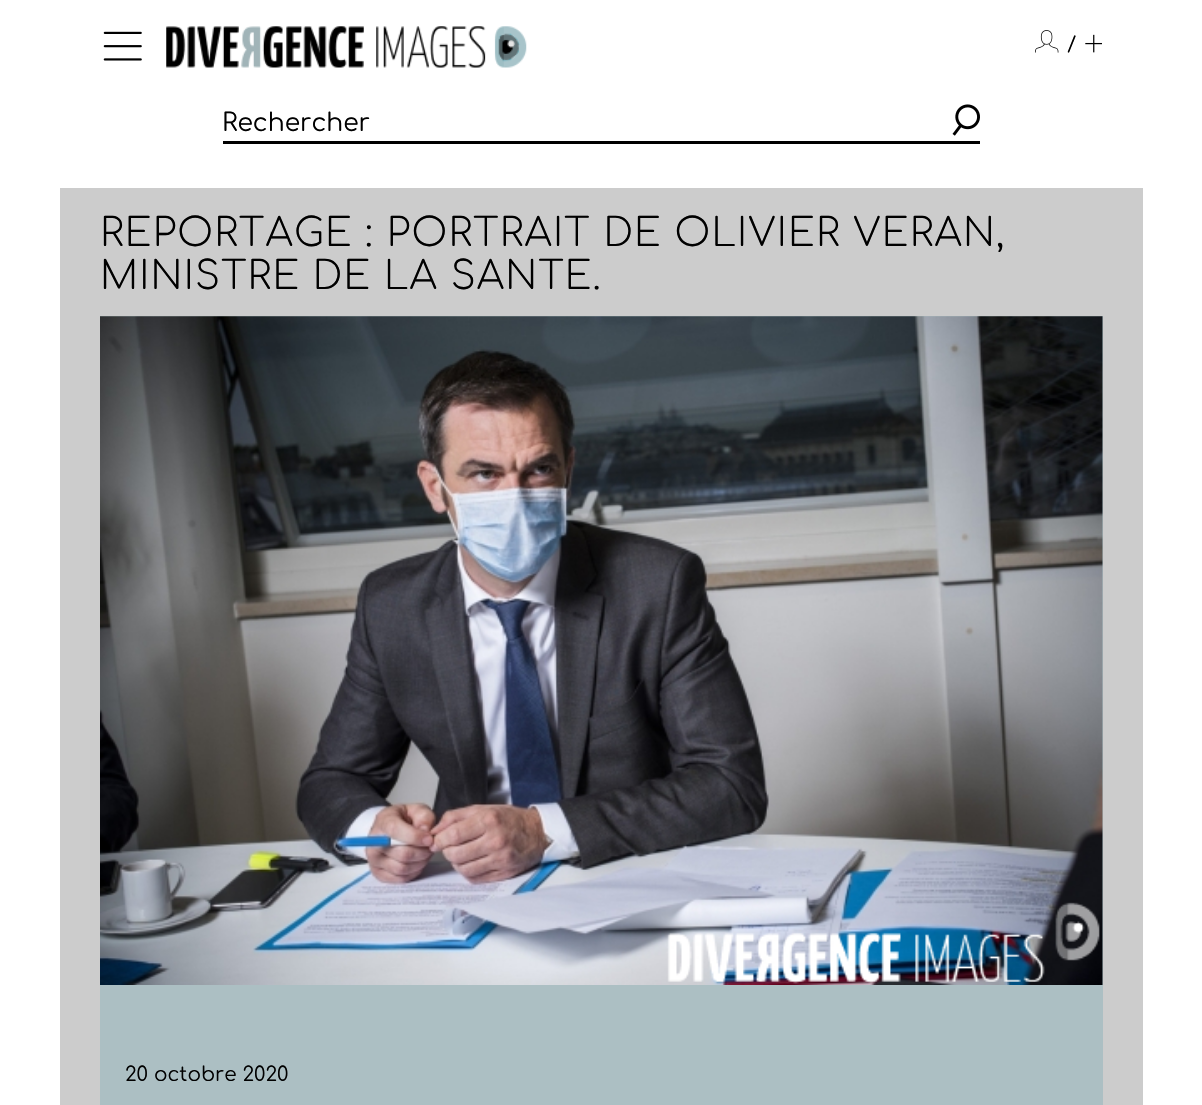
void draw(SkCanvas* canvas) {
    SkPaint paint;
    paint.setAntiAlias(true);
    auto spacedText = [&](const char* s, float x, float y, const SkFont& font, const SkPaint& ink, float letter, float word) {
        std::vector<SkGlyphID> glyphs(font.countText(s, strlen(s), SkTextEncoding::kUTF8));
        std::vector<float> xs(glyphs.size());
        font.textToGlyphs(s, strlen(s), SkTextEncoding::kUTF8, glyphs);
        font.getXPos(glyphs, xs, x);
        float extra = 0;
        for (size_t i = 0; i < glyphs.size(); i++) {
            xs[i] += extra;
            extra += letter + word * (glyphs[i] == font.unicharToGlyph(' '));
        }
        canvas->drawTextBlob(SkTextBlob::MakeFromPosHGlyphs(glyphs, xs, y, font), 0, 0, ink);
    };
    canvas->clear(0xFFFFFFFF);
    paint.setColor(0xFFCCCCCC);
    canvas->drawRect(SkRect::MakeXYWH(60, 188, 1083, 917), paint);
    canvas->drawImageRect(SkImages::DeferredFromEncodedData(SkData::MakeFromFileName("img1.png")), SkRect::MakeXYWH(103, 31, 39, 30), SkSamplingOptions());
    canvas->drawImageRect(SkImages::DeferredFromEncodedData(SkData::MakeFromFileName("img2.png")), SkRect::MakeXYWH(166, 26, 361, 42), SkSamplingOptions());
    canvas->drawImageRect(SkImages::DeferredFromEncodedData(SkData::MakeFromFileName("img3.png")), SkRect::MakeXYWH(1035, 30, 24, 23), SkSamplingOptions());
    SkFont font1(fontMgr->matchFamilyStyle("Comfortaa", SkFontStyle::Normal()), 20);
    font1.setSubpixel(true);
    paint.setColor(0xFF000000);
    spacedText("/", 1067, 51, font1, paint, 1.25f, 0);
    canvas->drawImageRect(SkImages::DeferredFromEncodedData(SkData::MakeFromFileName("img4.png")), SkRect::MakeXYWH(1085, 34, 17, 19), SkSamplingOptions());
    canvas->drawRect(SkRect::MakeXYWH(223, 141, 757, 3), paint);
    SkFont font2(fontMgr->matchFamilyStyle("Comfortaa", SkFontStyle::Normal()), 25);
    font2.setSubpixel(true);
    canvas->drawString("Rechercher", 222, 131, font2, paint);
    canvas->drawImageRect(SkImages::DeferredFromEncodedData(SkData::MakeFromFileName("img5.png")), SkRect::MakeXYWH(952, 104, 28, 32), SkSamplingOptions());
    SkFont font3(fontMgr->matchFamilyStyle("Comfortaa", SkFontStyle(300, SkFontStyle::kNormal_Width, SkFontStyle::kUpright_Slant)), 38.75f);
    font3.setSubpixel(true);
    spacedText("REPORTAGE : PORTRAIT DE OLIVIER VERAN,", 100, 246, font3, paint, 1.25f, 0);
    spacedText("MINISTRE DE LA SANTE.", 100, 289, font3, paint, 1.25f, 0);
    paint.setColor(0xFFACBFC3);
    canvas->drawRect(SkRect::MakeXYWH(100, 316, 1003, 789), paint);
    canvas->drawImageRect(SkImages::DeferredFromEncodedData(SkData::MakeFromFileName("img6.png")), SkRect::MakeXYWH(100, 316, 1003, 669), SkSamplingOptions());
    paint.setColor(0xFF000000);
    canvas->drawString("20 octobre 2020", 125, 1081, font1, paint);
}
